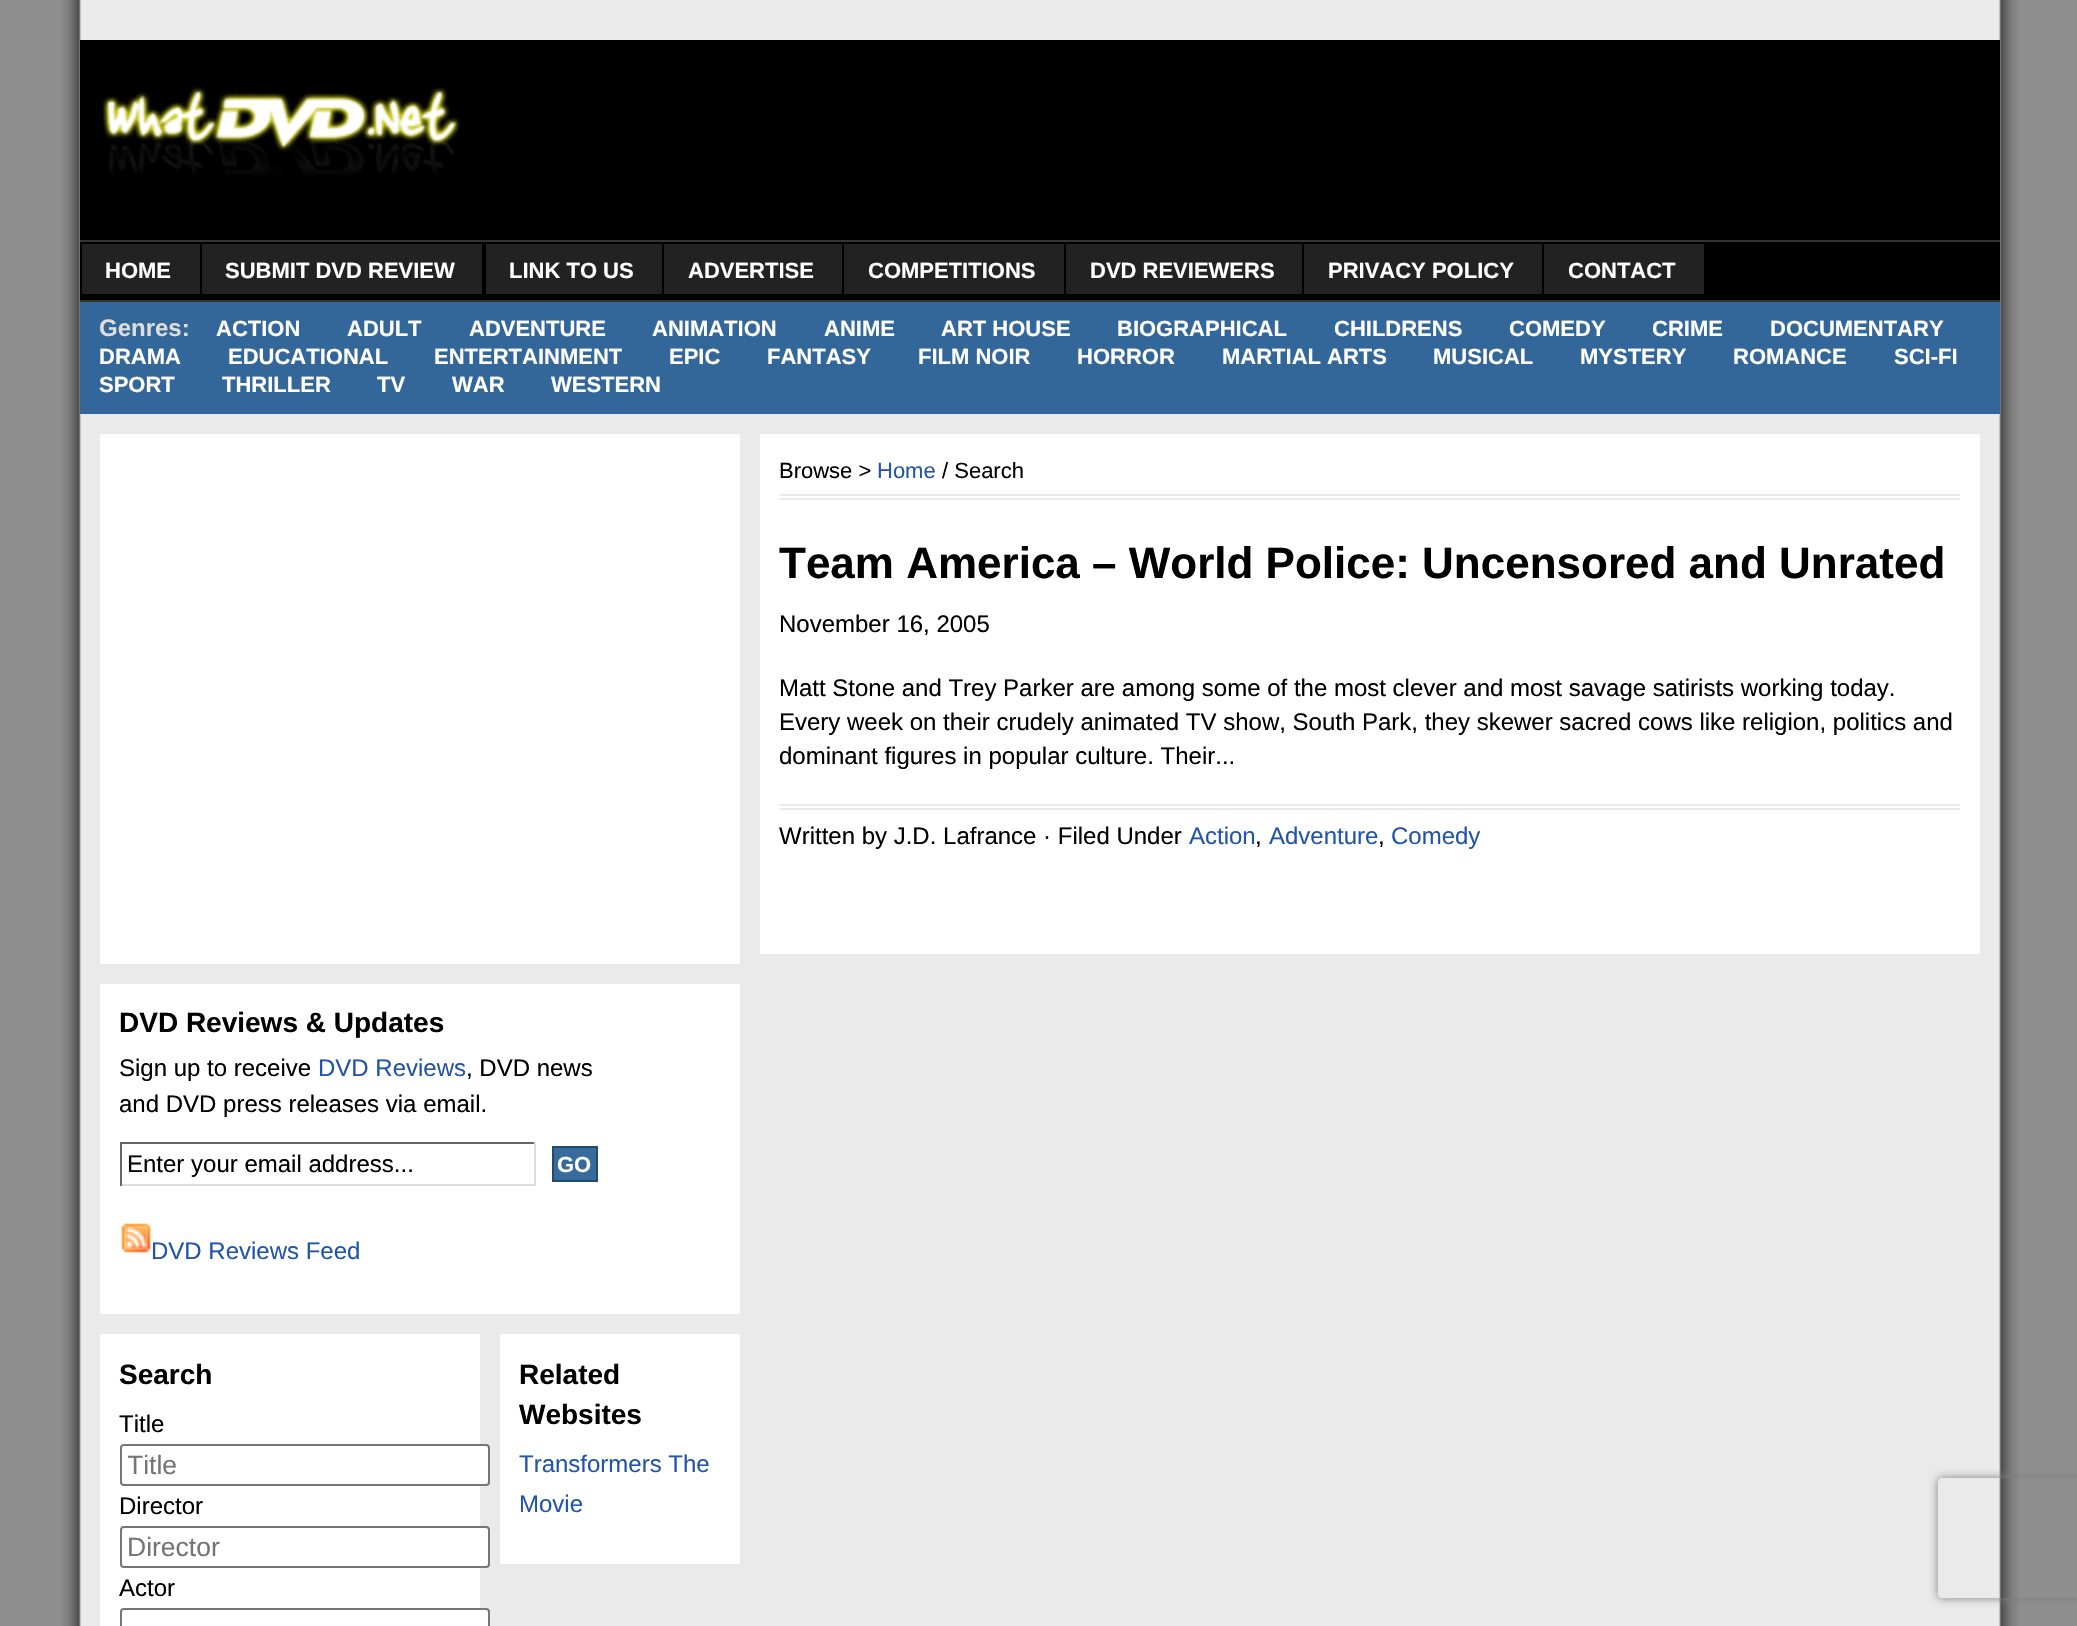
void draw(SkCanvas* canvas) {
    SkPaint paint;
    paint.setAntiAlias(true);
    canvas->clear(0xFF8F8E8E);
    canvas->drawImageRect(SkImages::DeferredFromEncodedData(SkData::MakeFromFileName("img1.png")), SkRect::MakeXYWH(62, 0, 1957, 1626), SkSamplingOptions());
    paint.setColor(0xFF000000);
    canvas->drawRect(SkRect::MakeXYWH(80, 40, 1920, 200), paint);
    canvas->drawImageRect(SkImages::DeferredFromEncodedData(SkData::MakeFromFileName("img2.png")), SkRect::MakeXYWH(102, 87, 358, 88), SkSamplingOptions());
    canvas->drawRect(SkRect::MakeXYWH(80, 242, 1920, 58), paint);
    paint.setColor(0xFF333333);
    canvas->drawRect(SkRect::MakeXYWH(80, 240, 1920, 2), paint);
    canvas->drawRect(SkRect::MakeXYWH(80, 300, 1920, 2), paint);
    paint.setColor(0xFF222222);
    canvas->drawRect(SkRect::MakeXYWH(82, 244, 118, 50), paint);
    SkFont font1(fontMgr->matchFamilyStyle("Liberation Sans", SkFontStyle::Bold()), 22);
    font1.setSubpixel(true);
    paint.setColor(0xFFFFFFFF);
    canvas->drawString("HOME", 105, 278, font1, paint);
    paint.setColor(0xFF222222);
    canvas->drawRect(SkRect::MakeXYWH(202, 244, 280, 50), paint);
    paint.setColor(0xFFFFFFFF);
    canvas->drawString("SUBMIT DVD REVIEW", 225, 278, font1, paint);
    paint.setColor(0xFF222222);
    canvas->drawRect(SkRect::MakeXYWH(486, 244, 176, 50), paint);
    paint.setColor(0xFFFFFFFF);
    canvas->drawString("LINK TO US", 509, 278, font1, paint);
    paint.setColor(0xFF222222);
    canvas->drawRect(SkRect::MakeXYWH(664, 244, 178, 50), paint);
    paint.setColor(0xFFFFFFFF);
    canvas->drawString("ADVERTISE", 688, 278, font1, paint);
    paint.setColor(0xFF222222);
    canvas->drawRect(SkRect::MakeXYWH(844, 244, 220, 50), paint);
    paint.setColor(0xFFFFFFFF);
    canvas->drawString("COMPETITIONS", 868, 278, font1, paint);
    paint.setColor(0xFF222222);
    canvas->drawRect(SkRect::MakeXYWH(1066, 244, 236, 50), paint);
    paint.setColor(0xFFFFFFFF);
    canvas->drawString("DVD REVIEWERS", 1090, 278, font1, paint);
    paint.setColor(0xFF222222);
    canvas->drawRect(SkRect::MakeXYWH(1304, 244, 238, 50), paint);
    paint.setColor(0xFFFFFFFF);
    canvas->drawString("PRIVACY POLICY", 1328, 278, font1, paint);
    paint.setColor(0xFF222222);
    canvas->drawRect(SkRect::MakeXYWH(1544, 244, 160, 50), paint);
    paint.setColor(0xFFFFFFFF);
    canvas->drawString("CONTACT", 1568, 278, font1, paint);
    paint.setColor(0xFF336699);
    canvas->drawRect(SkRect::MakeXYWH(80, 302, 1920, 112), paint);
    SkFont font2(fontMgr->matchFamilyStyle("Liberation Sans", SkFontStyle::Bold()), 24);
    font2.setSubpixel(true);
    paint.setColor(0xFFDDDDDD);
    canvas->drawString("Genres:", 99, 336, font2, paint);
    paint.setColor(0xFFFFFFFF);
    canvas->drawString("ACTION", 216, 336, font1, paint);
    canvas->drawString("ADULT", 347, 336, font1, paint);
    canvas->drawString("ADVENTURE", 469, 336, font1, paint);
    canvas->drawString("ANIMATION", 652, 336, font1, paint);
    canvas->drawString("ANIME", 824, 336, font1, paint);
    canvas->drawString("ART HOUSE", 941, 336, font1, paint);
    canvas->drawString("BIOGRAPHICAL", 1117, 336, font1, paint);
    canvas->drawString("CHILDRENS", 1334, 336, font1, paint);
    canvas->drawString("COMEDY", 1509, 336, font1, paint);
    canvas->drawString("CRIME", 1652, 336, font1, paint);
    canvas->drawString("DOCUMENTARY", 1770, 336, font1, paint);
    canvas->drawString("DRAMA", 99, 364, font1, paint);
    canvas->drawString("EDUCATIONAL", 228, 364, font1, paint);
    canvas->drawString("ENTERTAINMENT", 434, 364, font1, paint);
    canvas->drawString("EPIC", 669, 364, font1, paint);
    canvas->drawString("FANTASY", 767, 364, font1, paint);
    canvas->drawString("FILM NOIR", 918, 364, font1, paint);
    canvas->drawString("HORROR", 1077, 364, font1, paint);
    canvas->drawString("MARTIAL ARTS", 1222, 364, font1, paint);
    canvas->drawString("MUSICAL", 1433, 364, font1, paint);
    canvas->drawString("MYSTERY", 1580, 364, font1, paint);
    canvas->drawString("ROMANCE", 1733, 364, font1, paint);
    canvas->drawString("SCI-FI", 1894, 364, font1, paint);
    canvas->drawString("SPORT", 99, 392, font1, paint);
    canvas->drawString("THRILLER", 222, 392, font1, paint);
    canvas->drawString("TV", 377, 392, font1, paint);
    canvas->drawString("WAR", 452, 392, font1, paint);
    canvas->drawString("WESTERN", 551, 392, font1, paint);
    canvas->drawRect(SkRect::MakeXYWH(760, 434, 1220, 520), paint);
    paint.setColor(0xFFEAEAEA);
    canvas->drawRect(SkRect::MakeXYWH(780, 494, 1180, 2), paint);
    canvas->drawRect(SkRect::MakeXYWH(780, 498, 1180, 2), paint);
    SkFont font3(fontMgr->matchFamilyStyle("Liberation Sans", SkFontStyle::Normal()), 22);
    font3.setSubpixel(true);
    paint.setColor(0xFF000000);
    canvas->drawString("Browse >", 779, 478, font3, paint);
    paint.setColor(0xFF2255AA);
    canvas->drawString("Home", 877, 478, font3, paint);
    paint.setColor(0xFF000000);
    canvas->drawString("/ Search", 942, 478, font3, paint);
    SkFont font4(fontMgr->matchFamilyStyle("Liberation Sans", SkFontStyle::Bold()), 44);
    font4.setSubpixel(true);
    canvas->drawString("Team America – World Police: Uncensored and Unrated", 779, 578, font4, paint);
    SkFont font5(fontMgr->matchFamilyStyle("Liberation Sans", SkFontStyle::Normal()), 24);
    font5.setSubpixel(true);
    canvas->drawString("November 16, 2005", 779, 632, font5, paint);
    canvas->drawString("Matt Stone and Trey Parker are among some of the most clever and most savage satirists working today.", 779, 696, font5, paint);
    canvas->drawString("Every week on their crudely animated TV show, South Park, they skewer sacred cows like religion, politics and", 779, 730, font5, paint);
    canvas->drawString("dominant figures in popular culture. Their...", 779, 764, font5, paint);
    paint.setColor(0xFFEAEAEA);
    canvas->drawRect(SkRect::MakeXYWH(780, 804, 1180, 2), paint);
    canvas->drawRect(SkRect::MakeXYWH(780, 808, 1180, 2), paint);
    paint.setColor(0xFF000000);
    canvas->drawString("Written by J.D. Lafrance · Filed Under", 779, 844, font5, paint);
    paint.setColor(0xFF2255AA);
    canvas->drawString("Action", 1189, 844, font5, paint);
    paint.setColor(0xFF000000);
    canvas->drawString(",", 1255, 844, font5, paint);
    paint.setColor(0xFF2255AA);
    canvas->drawString("Adventure", 1269, 844, font5, paint);
    paint.setColor(0xFF000000);
    canvas->drawString(",", 1378, 844, font5, paint);
    paint.setColor(0xFF2255AA);
    canvas->drawString("Comedy", 1391, 844, font5, paint);
    paint.setColor(0xFFFFFFFF);
    canvas->drawRect(SkRect::MakeXYWH(100, 434, 640, 530), paint);
    canvas->drawRect(SkRect::MakeXYWH(100, 984, 640, 330), paint);
    SkFont font6(fontMgr->matchFamilyStyle("Liberation Sans", SkFontStyle::Bold()), 28);
    font6.setSubpixel(true);
    paint.setColor(0xFF000000);
    canvas->drawString("DVD Reviews & Updates", 119, 1032, font6, paint);
    canvas->drawString("Sign up to receive", 119, 1076, font5, paint);
    paint.setColor(0xFF2255AA);
    canvas->drawString("DVD Reviews", 318, 1076, font5, paint);
    paint.setColor(0xFF000000);
    canvas->drawString(", DVD news", 466, 1076, font5, paint);
    canvas->drawString("and DVD press releases via email.", 119, 1112, font5, paint);
    paint.setColor(0xFF666666);
    canvas->drawRect(SkRect::MakeXYWH(120, 1142, 416, 2), paint);
    paint.setColor(0xFFDDDDDD);
    canvas->drawRect(SkRect::MakeXYWH(534, 1142, 2, 44), paint);
    canvas->drawRect(SkRect::MakeXYWH(120, 1184, 416, 2), paint);
    paint.setColor(0xFF666666);
    canvas->drawRect(SkRect::MakeXYWH(120, 1142, 2, 44), paint);
    paint.setColor(0xFF000000);
    canvas->drawString("Enter your email address...", 127, 1172, font5, paint);
    paint.setColor(0xFF376B9D);
    canvas->drawRect(SkRect::MakeXYWH(553, 1147, 44, 34), paint);
    paint.setStyle(SkPaint::kStroke_Style);
    paint.setStrokeWidth(2);
    paint.setColor(0xFF234B69);
    canvas->drawRect(SkRect::MakeXYWH(553, 1147, 44, 34), paint);
    paint.setStyle(SkPaint::kFill_Style);
    paint.setColor(0xFFFFFFFF);
    canvas->drawString("GO", 557, 1172, font1, paint);
    canvas->drawImageRect(SkImages::DeferredFromEncodedData(SkData::MakeFromFileName("img3.png")), SkRect::MakeXYWH(121, 1223, 30, 30), SkSamplingOptions());
    paint.setColor(0xFF2255AA);
    canvas->drawString("DVD Reviews Feed", 151, 1259, font5, paint);
    paint.setColor(0xFFFFFFFF);
    canvas->drawRect(SkRect::MakeXYWH(100, 1334, 380, 292), paint);
    paint.setColor(0xFF000000);
    canvas->drawString("Search", 119, 1384, font6, paint);
    canvas->drawString("Title", 119, 1432, font5, paint);
    paint.setColor(0xFFFFFFFF);
    canvas->drawRoundRect(SkRect::MakeXYWH(121, 1445, 368, 40), 3, 3, paint);
    paint.setStyle(SkPaint::kStroke_Style);
    paint.setColor(0xFF767676);
    canvas->drawRoundRect(SkRect::MakeXYWH(121, 1445, 368, 40), 3, 3, paint);
    canvas->save();
    canvas->clipRect(SkRect::MakeXYWH(128, 1450, 354, 30));
    SkFont font7(fontMgr->matchFamilyStyle("Liberation Sans", SkFontStyle::Normal()), 26.5f);
    font7.setSubpixel(true);
    paint.setStyle(SkPaint::kFill_Style);
    paint.setColor(0xFF757575);
    canvas->drawString("Title", 127, 1474, font7, paint);
    canvas->restore();
    paint.setColor(0xFF000000);
    canvas->drawString("Director", 119, 1514, font5, paint);
    paint.setColor(0xFFFFFFFF);
    canvas->drawRoundRect(SkRect::MakeXYWH(121, 1527, 368, 40), 3, 3, paint);
    paint.setStyle(SkPaint::kStroke_Style);
    paint.setColor(0xFF767676);
    canvas->drawRoundRect(SkRect::MakeXYWH(121, 1527, 368, 40), 3, 3, paint);
    paint.setStyle(SkPaint::kFill_Style);
    paint.setColor(0xFF757575);
    canvas->drawString("Director", 127, 1556, font7, paint);
    paint.setColor(0xFF000000);
    canvas->drawString("Actor", 119, 1596, font5, paint);
    paint.setColor(0xFFFFFFFF);
    canvas->drawRoundRect(SkRect::MakeXYWH(121, 1609, 368, 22), 3, 3, paint);
    paint.setStyle(SkPaint::kStroke_Style);
    paint.setColor(0xFF767676);
    canvas->drawRoundRect(SkRect::MakeXYWH(121, 1609, 368, 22), 3, 3, paint);
    paint.setStyle(SkPaint::kFill_Style);
    paint.setColor(0xFFFFFFFF);
    canvas->drawRect(SkRect::MakeXYWH(500, 1334, 240, 230), paint);
    paint.setColor(0xFF000000);
    canvas->drawString("Related", 519, 1384, font6, paint);
    canvas->drawString("Websites", 519, 1424, font6, paint);
    paint.setColor(0xFF2255AA);
    canvas->drawString("Transformers The", 519, 1472, font5, paint);
    canvas->drawString("Movie", 519, 1512, font5, paint);
    canvas->save();
    canvas->clipPath(SkPathBuilder(SkPathFillType::kEvenOdd).moveTo(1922, 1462).lineTo(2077, 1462).lineTo(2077, 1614).lineTo(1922, 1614).close().moveTo(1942, 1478).lineTo(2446, 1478).cubicTo(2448, 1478, 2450, 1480, 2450, 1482).lineTo(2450, 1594).cubicTo(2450, 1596, 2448, 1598, 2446, 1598).lineTo(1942, 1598).cubicTo(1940, 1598, 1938, 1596, 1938, 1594).lineTo(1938, 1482).cubicTo(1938, 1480, 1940, 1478, 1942, 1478).close().detach(), true);
    paint.setColor(0xFF808080);
    paint.setMaskFilter(SkMaskFilter::MakeBlur(kNormal_SkBlurStyle, 5));
    canvas->drawRoundRect(SkRect::MakeXYWH(1938, 1478, 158, 120), 4, 4, paint);
    paint.setMaskFilter(nullptr);
    canvas->restore();
}
